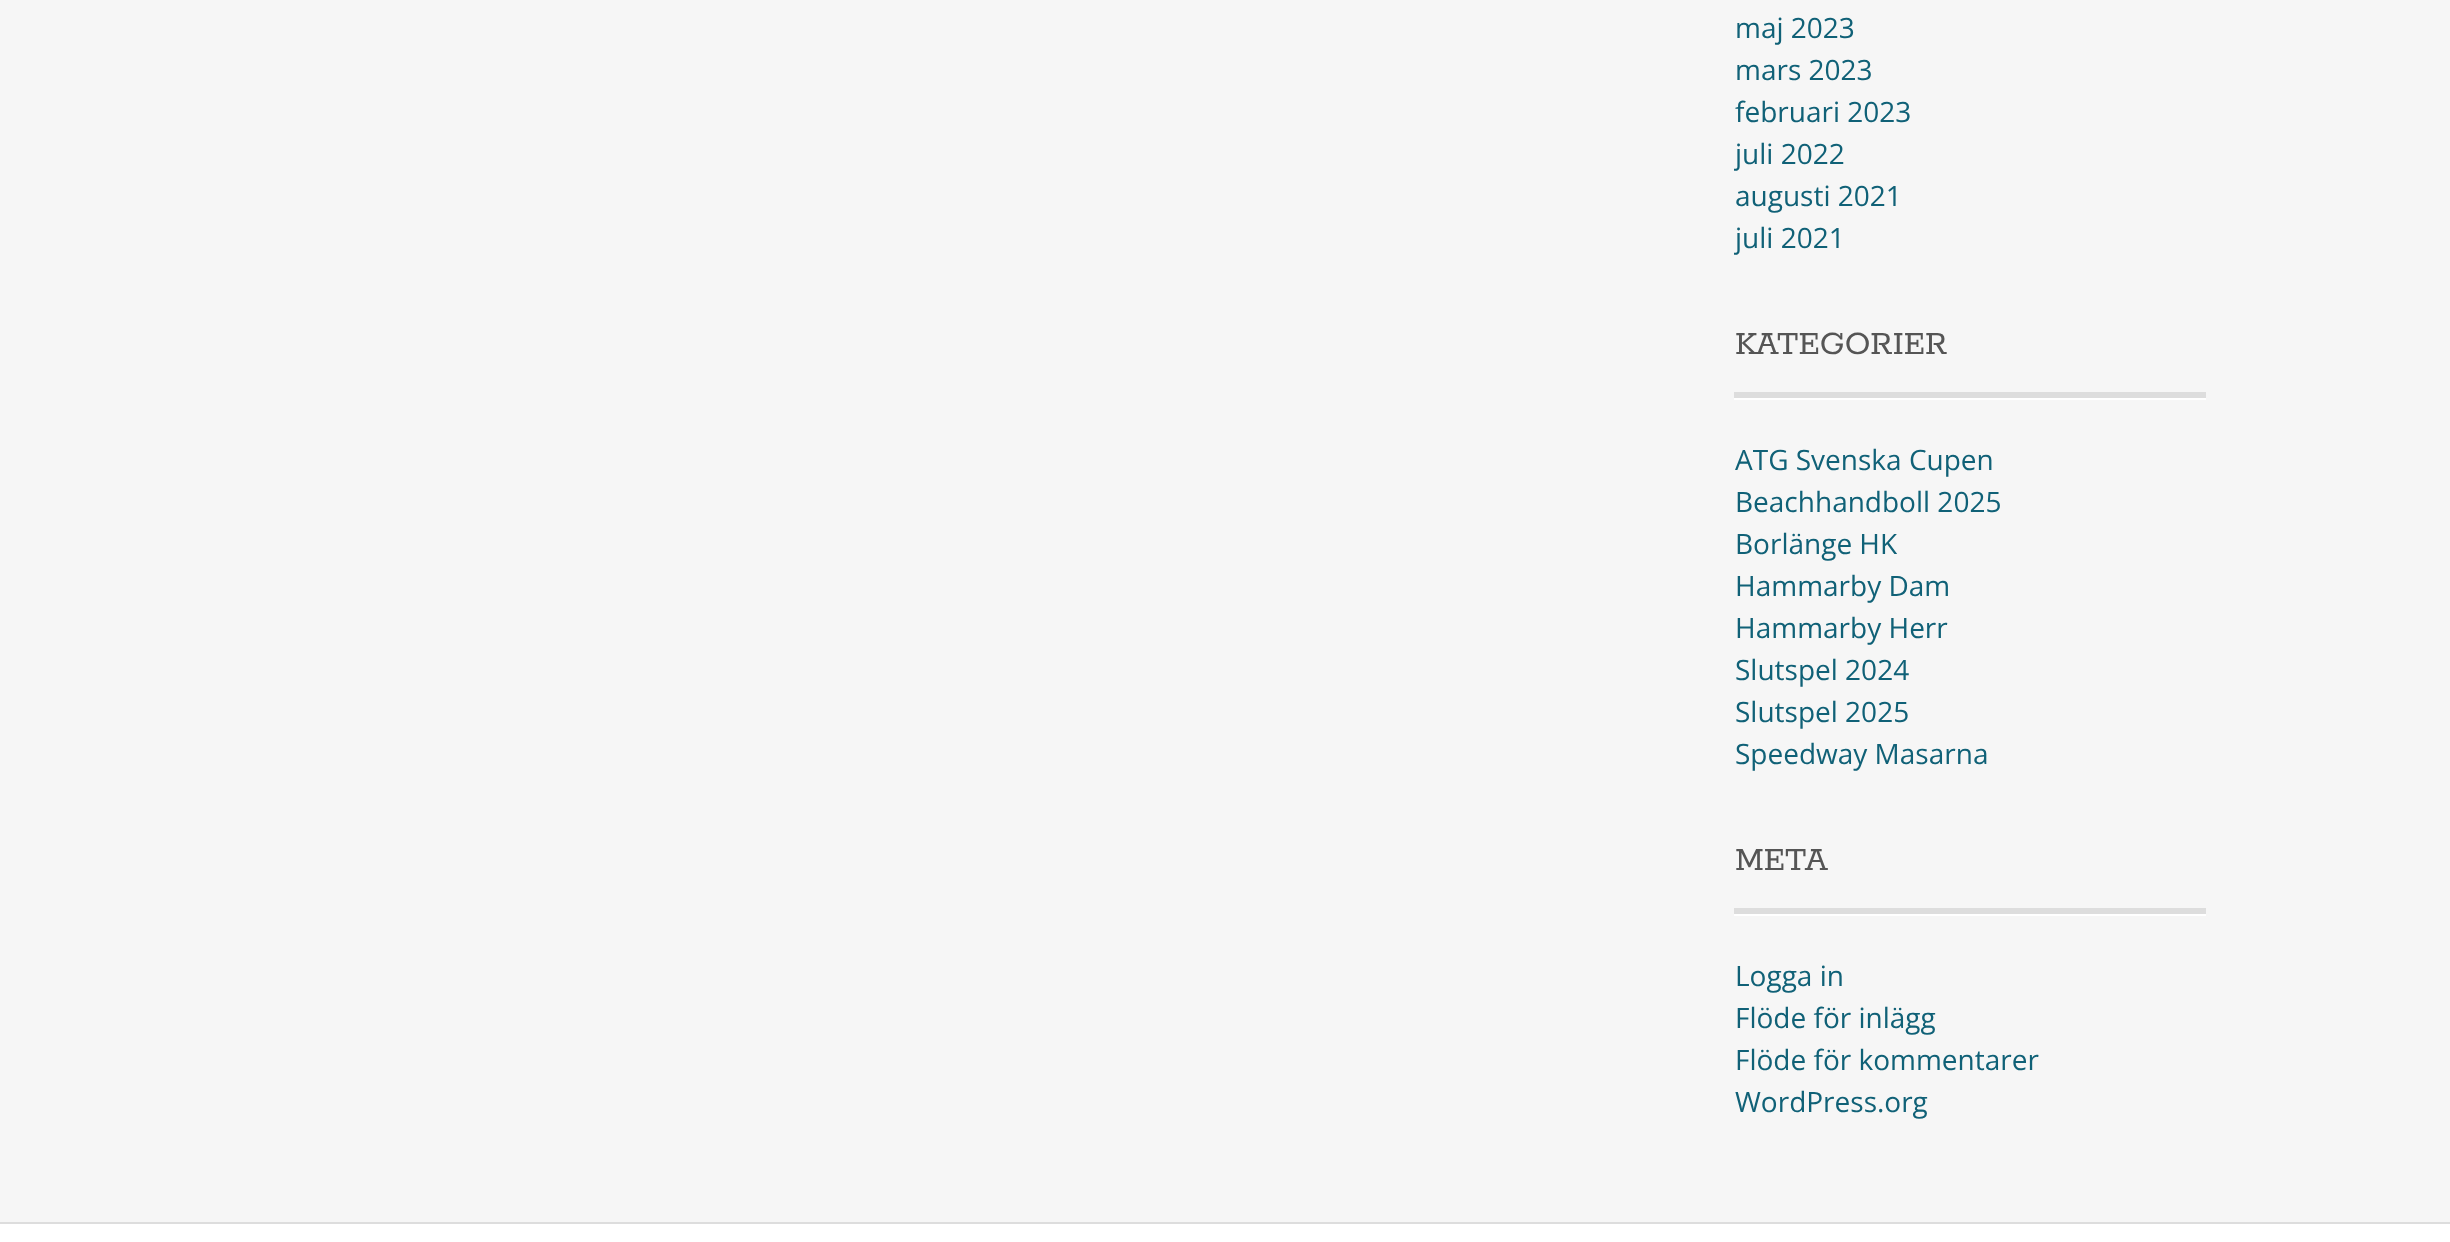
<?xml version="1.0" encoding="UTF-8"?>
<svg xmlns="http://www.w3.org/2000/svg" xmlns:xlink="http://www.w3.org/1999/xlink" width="2450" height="1242">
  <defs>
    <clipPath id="clip1"><rect x="1734" width="472" height="1182" /></clipPath>
  </defs>
  <rect width="100%" height="100%" fill="#f6f6f6" />
  <rect x="1734" y="398" width="472" height="2" fill="#ffffff" />
  <rect x="1734" y="392" width="472" height="6" fill="#dddddd" />
  <rect x="1734" y="914" width="472" height="2" fill="#ffffff" />
  <rect x="1734" y="908" width="472" height="6" fill="#dddddd" />
  <rect y="1224" width="2450" height="18" fill="#ffffff" />
  <rect y="1222" width="2450" height="2" fill="#dddddd" />
  <text x="1735" y="38" style="font-family: Open Sans; font-size: 28px; fill: #106177">maj 2023</text>
  <text x="1735" y="80" style="font-family: Open Sans; font-size: 28px; fill: #106177">mars 2023</text>
  <text x="1735" y="122" style="font-family: Open Sans; font-size: 28px; fill: #106177">februari 2023</text>
  <g clip-path="url(#clip1)">
    <text x="1735" y="164" style="font-family: Open Sans; font-size: 28px; fill: #106177">juli 2022</text>
  </g>
  <text x="1735" y="206" style="font-family: Open Sans; font-size: 28px; fill: #106177">augusti 2021</text>
  <g clip-path="url(#clip1)">
    <text x="1735" y="248" style="font-family: Open Sans; font-size: 28px; fill: #106177">juli 2021</text>
  </g>
  <text x="1735" y="354" style="font-family: Rokkitt; font-size: 36px; fill: #555555">KATEGORIER</text>
  <text x="1735" y="470" style="font-family: Open Sans; font-size: 28px; fill: #106177">ATG Svenska Cupen</text>
  <text x="1735" y="512" style="font-family: Open Sans; font-size: 28px; fill: #106177">Beachhandboll 2025</text>
  <text x="1735" y="554" style="font-family: Open Sans; font-size: 28px; fill: #106177">Borlänge HK</text>
  <text x="1735" y="596" style="font-family: Open Sans; font-size: 28px; fill: #106177">Hammarby Dam</text>
  <text x="1735" y="638" style="font-family: Open Sans; font-size: 28px; fill: #106177">Hammarby Herr</text>
  <text x="1735" y="680" style="font-family: Open Sans; font-size: 28px; fill: #106177">Slutspel 2024</text>
  <text x="1735" y="722" style="font-family: Open Sans; font-size: 28px; fill: #106177">Slutspel 2025</text>
  <text x="1735" y="764" style="font-family: Open Sans; font-size: 28px; fill: #106177">Speedway Masarna</text>
  <text x="1735" y="870" style="font-family: Rokkitt; font-size: 36px; fill: #555555">META</text>
  <text x="1735" y="986" style="font-family: Open Sans; font-size: 28px; fill: #106177">Logga in</text>
  <text x="1735" y="1028" style="font-family: Open Sans; font-size: 28px; fill: #106177">Flöde för inlägg</text>
  <text x="1735" y="1070" style="font-family: Open Sans; font-size: 28px; fill: #106177">Flöde för kommentarer</text>
  <text x="1735" y="1112" style="font-family: Open Sans; font-size: 28px; fill: #106177">WordPress.org</text>
</svg>
